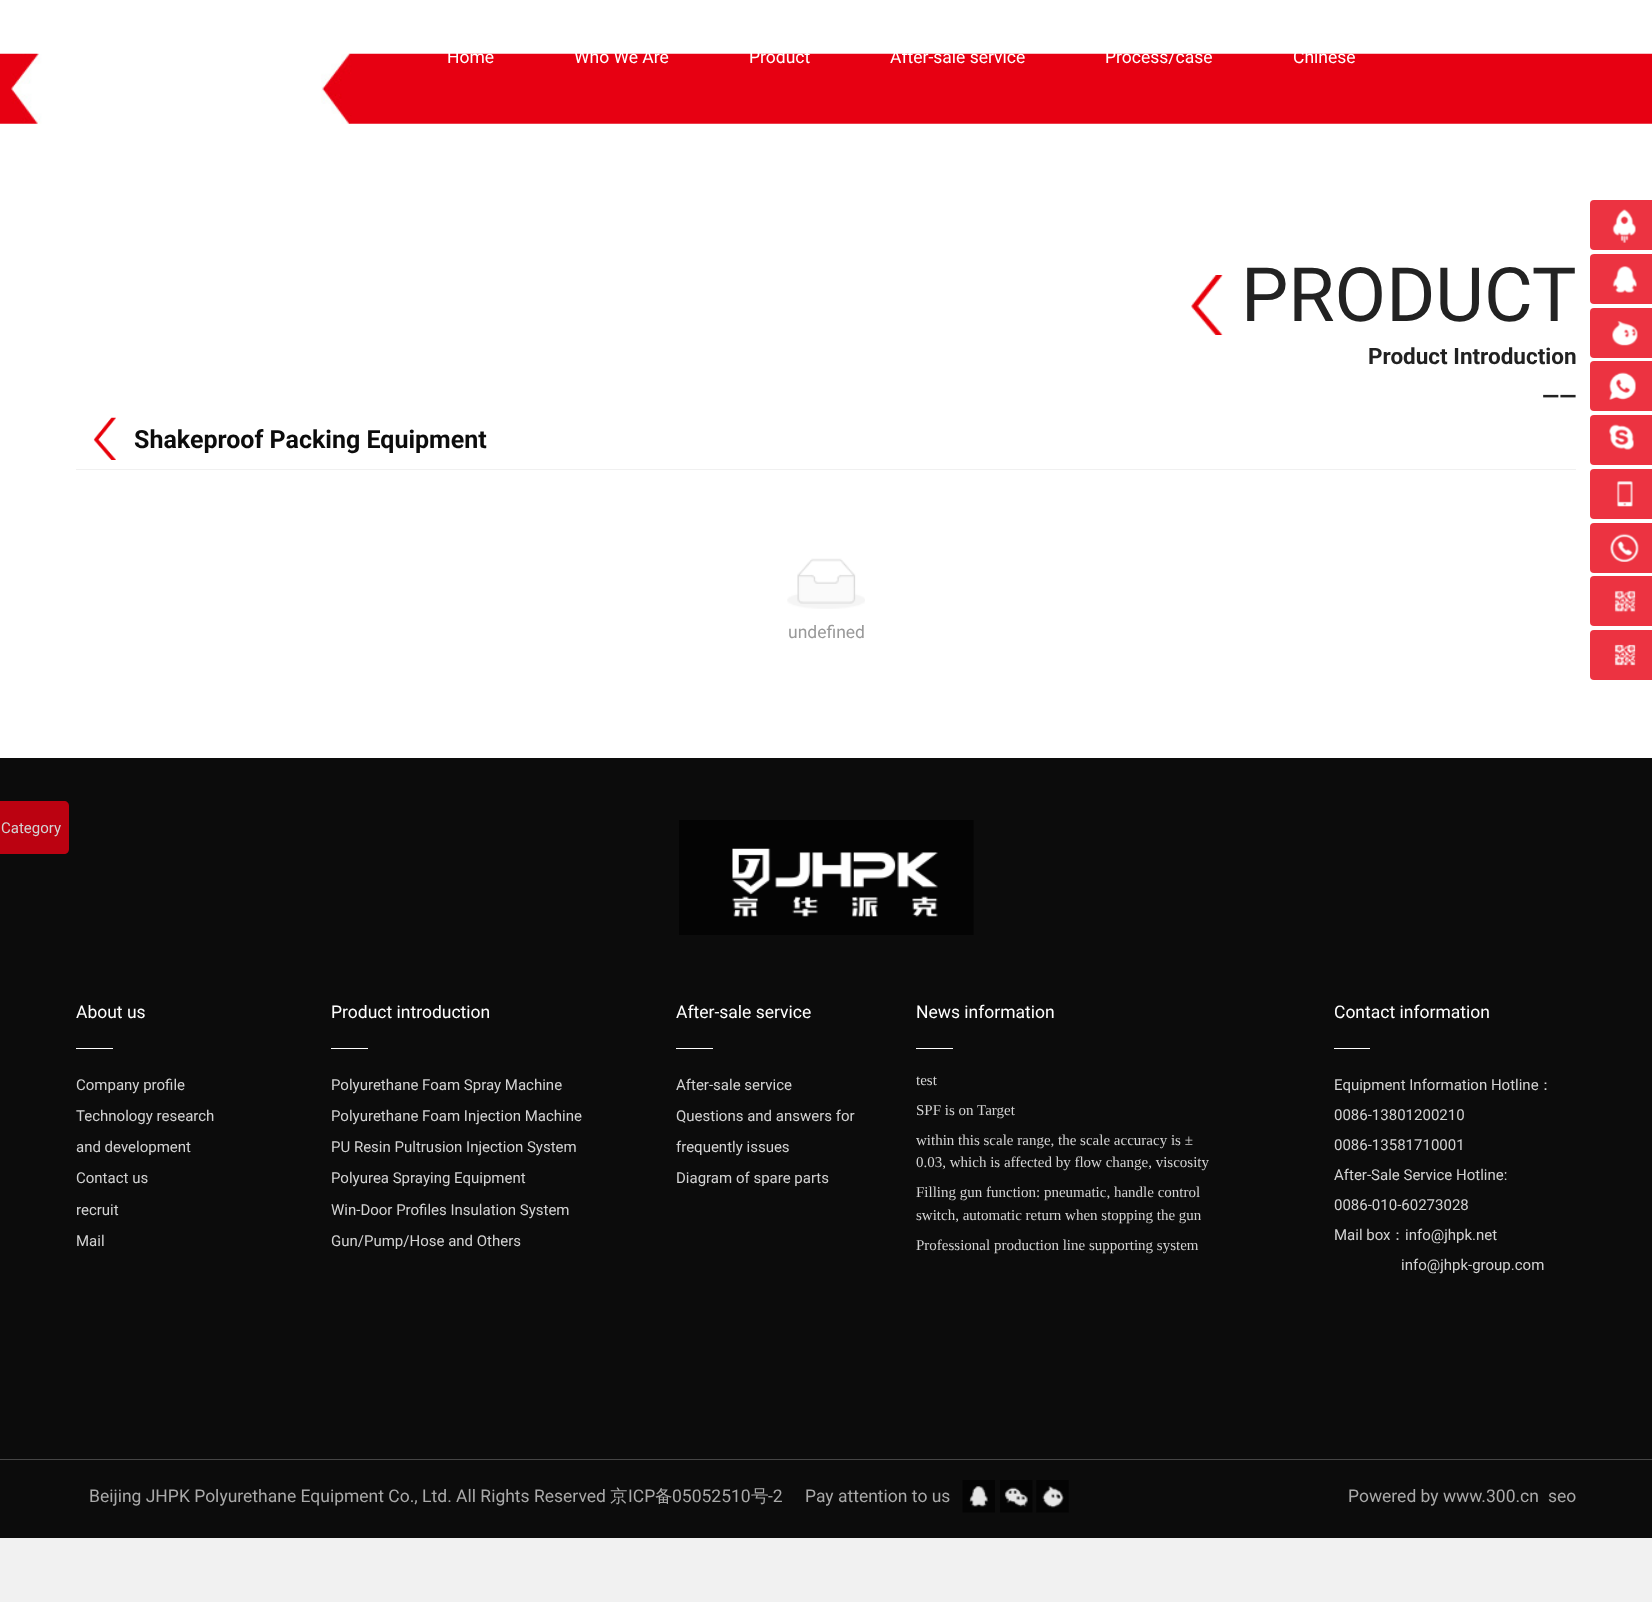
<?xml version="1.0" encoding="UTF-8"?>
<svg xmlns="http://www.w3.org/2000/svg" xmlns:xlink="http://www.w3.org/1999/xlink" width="1652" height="1602">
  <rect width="100%" height="100%" fill="#f1f1f1" />
  <rect width="1652" height="758" fill="#ffffff" />
  <image x="0" y="53" width="1652" height="71" xlink:href="image1.png" />
  <image x="1191" y="275" width="32" height="60" xlink:href="image2.png" />
  <image x="93" y="417" width="23" height="43" xlink:href="image3.png" />
  <rect x="76" y="469" width="1500" height="1" fill="#f0f0f0" />
  <image x="787" y="558" width="78" height="51" xlink:href="image4.png" />
  <rect y="758" width="1652" height="780" fill="#0c0c0c" />
  <path d="M -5 801 h 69 c 3 0 5 2 5 5 v 43 c 0 3 -2 5 -5 5 h -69 z" fill="#bb0211" />
  <rect x="1590" y="200" width="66" height="50" rx="4" fill="#ec3341" />
  <image x="1612" y="209" width="24" height="34" xlink:href="image5.png" />
  <rect x="1590" y="254" width="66" height="50" rx="4" fill="#ec3341" />
  <image x="1612" y="266" width="25" height="27" xlink:href="image6.png" />
  <rect x="1590" y="308" width="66" height="50" rx="4" fill="#ec3341" />
  <image x="1612" y="321" width="26" height="25" xlink:href="image7.png" />
  <rect x="1590" y="361" width="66" height="50" rx="4" fill="#ec3341" />
  <image x="1609" y="372" width="27" height="28" xlink:href="image8.png" />
  <rect x="1590" y="415" width="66" height="50" rx="4" fill="#ec3341" />
  <image x="1609" y="424" width="25" height="26" xlink:href="image9.png" />
  <rect x="1590" y="469" width="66" height="50" rx="4" fill="#ec3341" />
  <image x="1616" y="481" width="17" height="26" xlink:href="image10.png" />
  <rect x="1590" y="523" width="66" height="50" rx="4" fill="#ec3341" />
  <image x="1610" y="533" width="29" height="29" xlink:href="image11.png" />
  <rect x="1590" y="576" width="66" height="50" rx="4" fill="#ec3341" />
  <image x="1614" y="590" width="22" height="23" xlink:href="image12.png" />
  <rect x="1590" y="630" width="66" height="50" rx="4" fill="#ec3341" />
  <image x="1614" y="644" width="22" height="22" xlink:href="image13.png" />
  <image x="679" y="820" width="295" height="115" xlink:href="image14.png" />
  <rect x="76" y="1048" width="37" height="1" fill="#ffffff" />
  <rect x="331" y="1048" width="37" height="1" fill="#ffffff" />
  <rect x="676" y="1048" width="37" height="1" fill="#ffffff" />
  <rect x="916" y="1048" width="37" height="1" fill="#ffffff" />
  <rect x="1334" y="1048" width="36" height="1" fill="#ffffff" />
  <rect y="1459" width="1652" height="1" fill="#464646" />
  <image x="962" y="1480" width="33" height="33" xlink:href="image15.png" />
  <image x="1000" y="1480" width="33" height="33" xlink:href="image16.png" />
  <image x="1036" y="1480" width="33" height="33" xlink:href="image17.png" />
  <text x="447" y="63" style="font-family: Roboto; font-size: 17.5px; fill: #ffffff">Home</text>
  <text x="574" y="63" style="font-family: Roboto; font-size: 17.5px; fill: #ffffff">Who We Are</text>
  <text x="749" y="63" style="font-family: Roboto; font-size: 17.5px; fill: #ffffff">Product</text>
  <text x="890" y="63" style="font-family: Roboto; font-size: 17.5px; fill: #ffffff">After-sale service</text>
  <text x="1105" y="63" style="font-family: Roboto; font-size: 17.5px; fill: #ffffff">Process/case</text>
  <text x="1293" y="63" style="font-family: Roboto; font-size: 17.5px; fill: #ffffff">Chinese</text>
  <text x="1241" y="321" style="font-family: Roboto; font-size: 75px; fill: #222222">PRODUCT</text>
  <text x="1368" y="364" style="font-family: Roboto; font-size: 22.5px; font-weight: bold; fill: #222222">Product Introduction</text>
  <text x="1542" y="404" style="font-family: Roboto; font-size: 22.5px; font-weight: bold; fill: #222222">——</text>
  <text x="134" y="448" style="font-family: Roboto; font-size: 25px; font-weight: bold; fill: #0c0c0c">Shakeproof Packing Equipment</text>
  <text x="788" y="638" style="font-family: Roboto; font-size: 17.5px; fill: #999999">undefined</text>
  <text x="1" y="833" style="font-family: Roboto; font-size: 15px; fill: #d3d3d3">Category</text>
  <text x="76" y="1018" style="font-family: Roboto; font-size: 17.5px; fill: #ffffff">About us</text>
  <text x="76" y="1090" style="font-family: Roboto; font-size: 15px; fill: #d3d3d3">Company profile</text>
  <text x="76" y="1121" style="font-family: Roboto; font-size: 15px; fill: #d3d3d3">Technology research</text>
  <text x="76" y="1152" style="font-family: Roboto; font-size: 15px; fill: #d3d3d3">and development</text>
  <text x="76" y="1183" style="font-family: Roboto; font-size: 15px; fill: #d3d3d3">Contact us</text>
  <text x="76" y="1215" style="font-family: Roboto; font-size: 15px; fill: #d3d3d3">recruit</text>
  <text x="76" y="1246" style="font-family: Roboto; font-size: 15px; fill: #d3d3d3">Mail</text>
  <text x="331" y="1018" style="font-family: Roboto; font-size: 17.5px; fill: #ffffff">Product introduction</text>
  <text x="331" y="1090" style="font-family: Roboto; font-size: 15px; fill: #d3d3d3">Polyurethane Foam Spray Machine</text>
  <text x="331" y="1121" style="font-family: Roboto; font-size: 15px; fill: #d3d3d3">Polyurethane Foam Injection Machine</text>
  <text x="331" y="1152" style="font-family: Roboto; font-size: 15px; fill: #d3d3d3">PU Resin Pultrusion Injection System</text>
  <text x="331" y="1183" style="font-family: Roboto; font-size: 15px; fill: #d3d3d3">Polyurea Spraying Equipment</text>
  <text x="331" y="1215" style="font-family: Roboto; font-size: 15px; fill: #d3d3d3">Win-Door Profiles Insulation System</text>
  <text x="331" y="1246" style="font-family: Roboto; font-size: 15px; fill: #d3d3d3">Gun/Pump/Hose and Others</text>
  <text x="676" y="1018" style="font-family: Roboto; font-size: 17.5px; fill: #ffffff">After-sale service</text>
  <text x="676" y="1090" style="font-family: Roboto; font-size: 15px; fill: #d3d3d3">After-sale service</text>
  <text x="676" y="1121" style="font-family: Roboto; font-size: 15px; fill: #d3d3d3">Questions and answers for</text>
  <text x="676" y="1152" style="font-family: Roboto; font-size: 15px; fill: #d3d3d3">frequently issues</text>
  <text x="676" y="1183" style="font-family: Roboto; font-size: 15px; fill: #d3d3d3">Diagram of spare parts</text>
  <text x="916" y="1018" style="font-family: Roboto; font-size: 17.5px; fill: #ffffff">News information</text>
  <text x="916" y="1085" style="font-family: Liberation Serif; font-size: 15px; fill: #d3d3d3">test</text>
  <text x="916" y="1115" style="font-family: Liberation Serif; font-size: 15px; fill: #d3d3d3">SPF is on Target</text>
  <text x="916" y="1145" style="font-family: Liberation Serif; font-size: 15px; fill: #d3d3d3">within this scale range, the scale accuracy is ±</text>
  <text x="916" y="1167" style="font-family: Liberation Serif; font-size: 15px; fill: #d3d3d3">0.03, which is affected by flow change, viscosity</text>
  <text x="916" y="1197" style="font-family: Liberation Serif; font-size: 15px; fill: #d3d3d3">Filling gun function: pneumatic, handle control</text>
  <text x="916" y="1220" style="font-family: Liberation Serif; font-size: 15px; fill: #d3d3d3">switch, automatic return when stopping the gun</text>
  <text x="916" y="1250" style="font-family: Liberation Serif; font-size: 15px; fill: #d3d3d3">Professional production line supporting system</text>
  <text x="1334" y="1018" style="font-family: Roboto; font-size: 17.5px; fill: #ffffff">Contact information</text>
  <text x="1334" y="1090" style="font-family: Roboto; font-size: 15px; fill: #d3d3d3">Equipment Information Hotline</text>
  <text x="1538" y="1090" style="font-family: WenQuanYi Zen Hei; font-size: 15px; font-weight: 500; fill: #d3d3d3">：</text>
  <text x="1334" y="1120" style="font-family: Roboto; font-size: 15px; fill: #d3d3d3">0086-13801200210</text>
  <text x="1334" y="1150" style="font-family: Roboto; font-size: 15px; fill: #d3d3d3">0086-13581710001</text>
  <text x="1334" y="1180" style="font-family: Roboto; font-size: 15px; fill: #d3d3d3">After-Sale Service Hotline:</text>
  <text x="1334" y="1210" style="font-family: Roboto; font-size: 15px; fill: #d3d3d3">0086-010-60273028</text>
  <text x="1334" y="1240" style="font-family: Roboto; font-size: 15px; fill: #d3d3d3">Mail box</text>
  <text x="1390" y="1240" style="font-family: WenQuanYi Zen Hei; font-size: 15px; font-weight: 500; fill: #d3d3d3">：</text>
  <text x="1405" y="1240" style="font-family: Roboto; font-size: 15px; fill: #d3d3d3">info@jhpk.net</text>
  <text x="1401" y="1270" style="font-family: Roboto; font-size: 15px; fill: #d3d3d3">info@jhpk-group.com</text>
  <text x="89" y="1502" style="font-family: Roboto; font-size: 17.5px; fill: #a9a9a9">Beijing JHPK Polyurethane Equipment Co., Ltd. All Rights Reserved</text>
  <text x="610" y="1502" style="font-family: WenQuanYi Zen Hei; font-size: 17.5px; font-weight: 500; fill: #a9a9a9">京</text>
  <text x="628" y="1502" style="font-family: Roboto; font-size: 17.5px; fill: #a9a9a9">ICP</text>
  <text x="655" y="1502" style="font-family: WenQuanYi Zen Hei; font-size: 17.5px; font-weight: 500; fill: #a9a9a9">备</text>
  <text x="672" y="1502" style="font-family: Roboto; font-size: 17.5px; fill: #a9a9a9">05052510</text>
  <text x="751" y="1502" style="font-family: WenQuanYi Zen Hei; font-size: 17.5px; font-weight: 500; fill: #a9a9a9">号</text>
  <text x="768" y="1502" style="font-family: Roboto; font-size: 17.5px; fill: #a9a9a9">-2</text>
  <text x="805" y="1502" style="font-family: Roboto; font-size: 17.5px; fill: #a9a9a9">Pay attention to us</text>
  <text x="1348" y="1502" style="font-family: Roboto; font-size: 17.5px; fill: #a9a9a9">Powered by www.300.cn</text>
  <text x="1548" y="1502" style="font-family: Roboto; font-size: 17.5px; fill: #a9a9a9">seo</text>
</svg>
